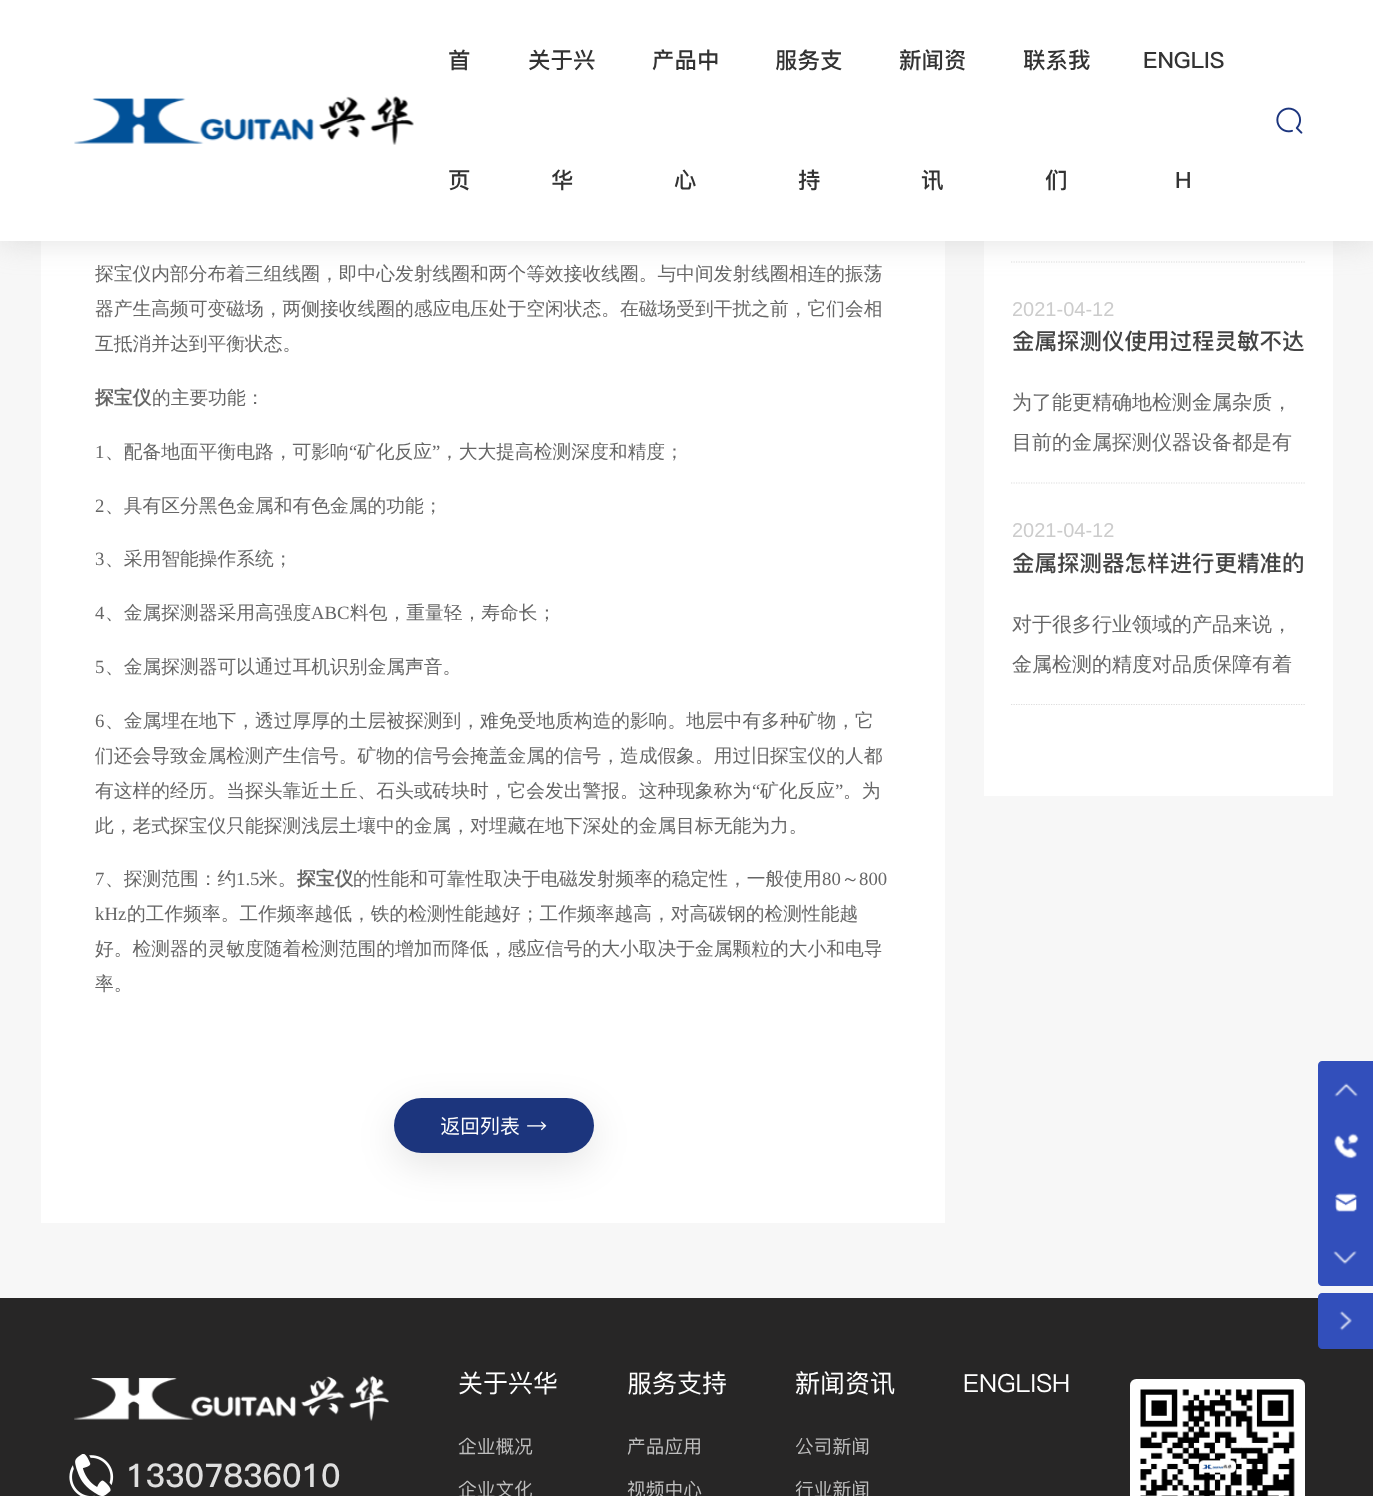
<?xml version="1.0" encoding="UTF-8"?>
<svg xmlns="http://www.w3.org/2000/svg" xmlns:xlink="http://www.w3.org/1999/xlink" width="1373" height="1496">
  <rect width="100%" height="100%" fill="#f7f7f7" />
  <rect x="41" y="241" width="904" height="982" fill="#ffffff" />
  <rect x="984" y="241" width="349" height="555" fill="#ffffff" />
  <path d="M 1011 262 h 294" fill="none" stroke="#dddddd" stroke-width="1.2" stroke-dasharray="1.25 1.25" />
  <rect width="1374" height="241" fill="#b1b1b1" fill-opacity="0.4" filter="blur(15.5px)" />
  <rect width="1373" height="241" fill="#ffffff" />
  <image x="74" y="96" width="340" height="49" xlink:href="image1.png" />
  <image x="1276" y="107" width="27" height="27" xlink:href="image2.png" />
  <rect x="394" y="1110" width="200" height="55" rx="27.5" fill="#000000" fill-opacity="0.1" filter="blur(19px)" />
  <rect x="394" y="1098" width="200" height="55" rx="27.5" fill="#1c357d" />
  <path d="M 1011 483 h 294" fill="none" stroke="#dddddd" stroke-width="1.2" stroke-dasharray="1.25 1.25" />
  <path d="M 1011 704.5 h 294" fill="none" stroke="#dddddd" stroke-width="1.2" stroke-dasharray="1.25 1.25" />
  <path d="M 1322 1061 h 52 v 225 h -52 c -2 0 -4 -2 -4 -4 v -217 c 0 -2 2 -4 4 -4 z" fill="#324fbb" />
  <image x="1334" y="1083" width="24" height="14" xlink:href="image3.png" />
  <image x="1334" y="1133" width="25" height="26" xlink:href="image4.png" />
  <image x="1335" y="1193" width="23" height="19" xlink:href="image5.png" />
  <image x="1333" y="1251" width="24" height="14" xlink:href="image6.png" />
  <rect y="1298" width="1373" height="198" fill="#272626" />
  <path d="M 1322 1293 h 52 v 56 h -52 c -2 0 -4 -2 -4 -4 v -48 c 0 -2 2 -4 4 -4 z" fill="#324fbb" />
  <image x="1339" y="1311" width="13" height="20" xlink:href="image7.png" />
  <image x="74" y="1375" width="315" height="46" xlink:href="image8.png" />
  <image x="69" y="1454" width="45" height="42" xlink:href="image9.png" />
  <image x="1130" y="1379" width="175" height="117" xlink:href="image10.png" />
  <text x="448" y="68" style="font-family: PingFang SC; font-size: 22.5px; font-weight: bold; fill: #333333">首</text>
  <text x="448" y="188" style="font-family: PingFang SC; font-size: 22.5px; font-weight: bold; fill: #333333">页</text>
  <text x="528" y="68" style="font-family: PingFang SC; font-size: 22.5px; font-weight: bold; fill: #333333">关于兴</text>
  <text x="551" y="188" style="font-family: PingFang SC; font-size: 22.5px; font-weight: bold; fill: #333333">华</text>
  <text x="652" y="68" style="font-family: PingFang SC; font-size: 22.5px; font-weight: bold; fill: #333333">产品中</text>
  <text x="674" y="188" style="font-family: PingFang SC; font-size: 22.5px; font-weight: bold; fill: #333333">心</text>
  <text x="775" y="68" style="font-family: PingFang SC; font-size: 22.5px; font-weight: bold; fill: #333333">服务支</text>
  <text x="798" y="188" style="font-family: PingFang SC; font-size: 22.5px; font-weight: bold; fill: #333333">持</text>
  <text x="899" y="68" style="font-family: PingFang SC; font-size: 22.5px; font-weight: bold; fill: #333333">新闻资</text>
  <text x="921" y="188" style="font-family: PingFang SC; font-size: 22.5px; font-weight: bold; fill: #333333">讯</text>
  <text x="1023" y="68" style="font-family: PingFang SC; font-size: 22.5px; font-weight: bold; fill: #333333">联系我</text>
  <text x="1045" y="188" style="font-family: PingFang SC; font-size: 22.5px; font-weight: bold; fill: #333333">们</text>
  <text x="1143" y="68" style="font-family: PingFang SC; font-size: 22.5px; font-weight: bold; fill: #333333">ENGLIS</text>
  <text x="1175" y="188" style="font-family: PingFang SC; font-size: 22.5px; font-weight: bold; fill: #333333">H</text>
  <text x="95" y="280" style="font-family: WenQuanYi Zen Hei; font-size: 18.75px; font-weight: 500; fill: #666666">探宝仪内部分布着三组线圈，即中心发射线圈和两个等效接收线圈。与中间发射线圈相连的振荡</text>
  <text x="95" y="315" style="font-family: WenQuanYi Zen Hei; font-size: 18.75px; font-weight: 500; fill: #666666">器产生高频可变磁场，两侧接收线圈的感应电压处于空闲状态。在磁场受到干扰之前，它们会相</text>
  <text x="95" y="350" style="font-family: WenQuanYi Zen Hei; font-size: 18.75px; font-weight: 500; fill: #666666">互抵消并达到平衡状态。</text>
  <text x="95" y="404" style="font-family: WenQuanYi Zen Hei; font-size: 18.75px; font-weight: bold; fill: #666666">探宝仪</text>
  <text x="152" y="404" style="font-family: WenQuanYi Zen Hei; font-size: 18.75px; font-weight: 500; fill: #666666">的主要功能：</text>
  <text x="95" y="458" style="font-family: Liberation Serif; font-size: 18.75px; fill: #666666">1</text>
  <text x="105" y="458" style="font-family: WenQuanYi Zen Hei; font-size: 18.75px; font-weight: 500; fill: #666666">、配备地面平衡电路，可影响</text>
  <text x="349" y="458" style="font-family: Liberation Serif; font-size: 18.75px; fill: #666666">“</text>
  <text x="357" y="458" style="font-family: WenQuanYi Zen Hei; font-size: 18.75px; font-weight: 500; fill: #666666">矿化反应</text>
  <text x="432" y="458" style="font-family: Liberation Serif; font-size: 18.75px; fill: #666666">”</text>
  <text x="440" y="458" style="font-family: WenQuanYi Zen Hei; font-size: 18.75px; font-weight: 500; fill: #666666">，大大提高检测深度和精度；</text>
  <text x="95" y="512" style="font-family: Liberation Serif; font-size: 18.75px; fill: #666666">2</text>
  <text x="105" y="512" style="font-family: WenQuanYi Zen Hei; font-size: 18.75px; font-weight: 500; fill: #666666">、具有区分黑色金属和有色金属的功能；</text>
  <text x="95" y="565" style="font-family: Liberation Serif; font-size: 18.75px; fill: #666666">3</text>
  <text x="105" y="565" style="font-family: WenQuanYi Zen Hei; font-size: 18.75px; font-weight: 500; fill: #666666">、采用智能操作系统；</text>
  <text x="95" y="619" style="font-family: Liberation Serif; font-size: 18.75px; fill: #666666">4</text>
  <text x="105" y="619" style="font-family: WenQuanYi Zen Hei; font-size: 18.75px; font-weight: 500; fill: #666666">、金属探测器采用高强度</text>
  <text x="311" y="619" style="font-family: Liberation Serif; font-size: 18.75px; fill: #666666">ABC</text>
  <text x="350" y="619" style="font-family: WenQuanYi Zen Hei; font-size: 18.75px; font-weight: 500; fill: #666666">料包，重量轻，寿命长；</text>
  <text x="95" y="673" style="font-family: Liberation Serif; font-size: 18.75px; fill: #666666">5</text>
  <text x="105" y="673" style="font-family: WenQuanYi Zen Hei; font-size: 18.75px; font-weight: 500; fill: #666666">、金属探测器可以通过耳机识别金属声音。</text>
  <text x="95" y="727" style="font-family: Liberation Serif; font-size: 18.75px; fill: #666666">6</text>
  <text x="105" y="727" style="font-family: WenQuanYi Zen Hei; font-size: 18.75px; font-weight: 500; fill: #666666">、金属埋在地下，透过厚厚的土层被探测到，难免受地质构造的影响。地层中有多种矿物，它</text>
  <text x="95" y="762" style="font-family: WenQuanYi Zen Hei; font-size: 18.75px; font-weight: 500; fill: #666666">们还会导致金属检测产生信号。矿物的信号会掩盖金属的信号，造成假象。用过旧探宝仪的人都</text>
  <text x="95" y="797" style="font-family: WenQuanYi Zen Hei; font-size: 18.75px; font-weight: 500; fill: #666666">有这样的经历。当探头靠近土丘、石头或砖块时，它会发出警报。这种现象称为</text>
  <text x="752" y="797" style="font-family: Liberation Serif; font-size: 18.75px; fill: #666666">“</text>
  <text x="760" y="797" style="font-family: WenQuanYi Zen Hei; font-size: 18.75px; font-weight: 500; fill: #666666">矿化反应</text>
  <text x="835" y="797" style="font-family: Liberation Serif; font-size: 18.75px; fill: #666666">”</text>
  <text x="843" y="797" style="font-family: WenQuanYi Zen Hei; font-size: 18.75px; font-weight: 500; fill: #666666">。为</text>
  <text x="95" y="832" style="font-family: WenQuanYi Zen Hei; font-size: 18.75px; font-weight: 500; fill: #666666">此，老式探宝仪只能探测浅层土壤中的金属，对埋藏在地下深处的金属目标无能为力。</text>
  <text x="95" y="885" style="font-family: Liberation Serif; font-size: 18.75px; fill: #666666">7</text>
  <text x="105" y="885" style="font-family: WenQuanYi Zen Hei; font-size: 18.75px; font-weight: 500; fill: #666666">、探测范围：约</text>
  <text x="236" y="885" style="font-family: Liberation Serif; font-size: 18.75px; fill: #666666">1.5</text>
  <text x="259" y="885" style="font-family: WenQuanYi Zen Hei; font-size: 18.75px; font-weight: 500; fill: #666666">米。</text>
  <text x="297" y="885" style="font-family: WenQuanYi Zen Hei; font-size: 18.75px; font-weight: bold; fill: #666666">探宝仪</text>
  <text x="353" y="885" style="font-family: WenQuanYi Zen Hei; font-size: 18.75px; font-weight: 500; fill: #666666">的性能和可靠性取决于电磁发射频率的稳定性，一般使用</text>
  <text x="822" y="885" style="font-family: Liberation Serif; font-size: 18.75px; fill: #666666">80</text>
  <text x="841" y="885" style="font-family: WenQuanYi Zen Hei; font-size: 18.75px; font-weight: 500; fill: #666666">～</text>
  <text x="859" y="885" style="font-family: Liberation Serif; font-size: 18.75px; fill: #666666">800</text>
  <text x="95" y="920" style="font-family: Liberation Serif; font-size: 18.75px; fill: #666666">kHz</text>
  <text x="127" y="920" style="font-family: WenQuanYi Zen Hei; font-size: 18.75px; font-weight: 500; fill: #666666">的工作频率。工作频率越低，铁的检测性能越好；工作频率越高，对高碳钢的检测性能越</text>
  <text x="95" y="955" style="font-family: WenQuanYi Zen Hei; font-size: 18.75px; font-weight: 500; fill: #666666">好。检测器的灵敏度随着检测范围的增加而降低，感应信号的大小取决于金属颗粒的大小和电导</text>
  <text x="95" y="990" style="font-family: WenQuanYi Zen Hei; font-size: 18.75px; font-weight: 500; fill: #666666">率。</text>
  <text x="440" y="1133" style="font-family: PingFang SC; font-size: 20px; font-weight: 500; fill: #ffffff">返回列表 →</text>
  <text x="1012" y="316" style="font-family: Liberation Sans; font-size: 20px; fill: #cccccc">2021-04-12</text>
  <text x="1012" y="349" style="font-family: PingFang SC; font-size: 22.5px; font-weight: bold; fill: #444444">金属探测仪使用过程灵敏不达</text>
  <text x="1012" y="409" style="font-family: WenQuanYi Zen Hei; font-size: 20px; font-weight: 500; fill: #666666">为了能更精确地检测金属杂质，</text>
  <text x="1012" y="449" style="font-family: WenQuanYi Zen Hei; font-size: 20px; font-weight: 500; fill: #666666">目前的金属探测仪器设备都是有</text>
  <text x="1012" y="537" style="font-family: Liberation Sans; font-size: 20px; fill: #cccccc">2021-04-12</text>
  <text x="1012" y="571" style="font-family: PingFang SC; font-size: 22.5px; font-weight: bold; fill: #444444">金属探测器怎样进行更精准的</text>
  <text x="1012" y="631" style="font-family: WenQuanYi Zen Hei; font-size: 20px; font-weight: 500; fill: #666666">对于很多行业领域的产品来说，</text>
  <text x="1012" y="671" style="font-family: WenQuanYi Zen Hei; font-size: 20px; font-weight: 500; fill: #666666">金属检测的精度对品质保障有着</text>
  <text x="126" y="1487" style="font-family: PingFang SC; font-size: 32.5px; font-weight: bold; fill: #dfdfdf">13307836010</text>
  <text x="458" y="1392" style="font-family: PingFang SC; font-size: 25px; font-weight: 500; fill: #ffffff">关于兴华</text>
  <text x="458" y="1453" style="font-family: PingFang SC; font-size: 18.75px; font-weight: 500; fill: #bebebe">企业概况</text>
  <text x="458" y="1496" style="font-family: PingFang SC; font-size: 18.75px; font-weight: 500; fill: #bebebe">企业文化</text>
  <text x="627" y="1392" style="font-family: PingFang SC; font-size: 25px; font-weight: 500; fill: #ffffff">服务支持</text>
  <text x="627" y="1453" style="font-family: PingFang SC; font-size: 18.75px; font-weight: 500; fill: #bebebe">产品应用</text>
  <text x="627" y="1496" style="font-family: PingFang SC; font-size: 18.75px; font-weight: 500; fill: #bebebe">视频中心</text>
  <text x="795" y="1392" style="font-family: PingFang SC; font-size: 25px; font-weight: 500; fill: #ffffff">新闻资讯</text>
  <text x="795" y="1453" style="font-family: PingFang SC; font-size: 18.75px; font-weight: 500; fill: #bebebe">公司新闻</text>
  <text x="795" y="1496" style="font-family: PingFang SC; font-size: 18.75px; font-weight: 500; fill: #bebebe">行业新闻</text>
  <text x="963" y="1392" style="font-family: PingFang SC; font-size: 25px; font-weight: 500; fill: #ffffff">ENGLISH</text>
</svg>
